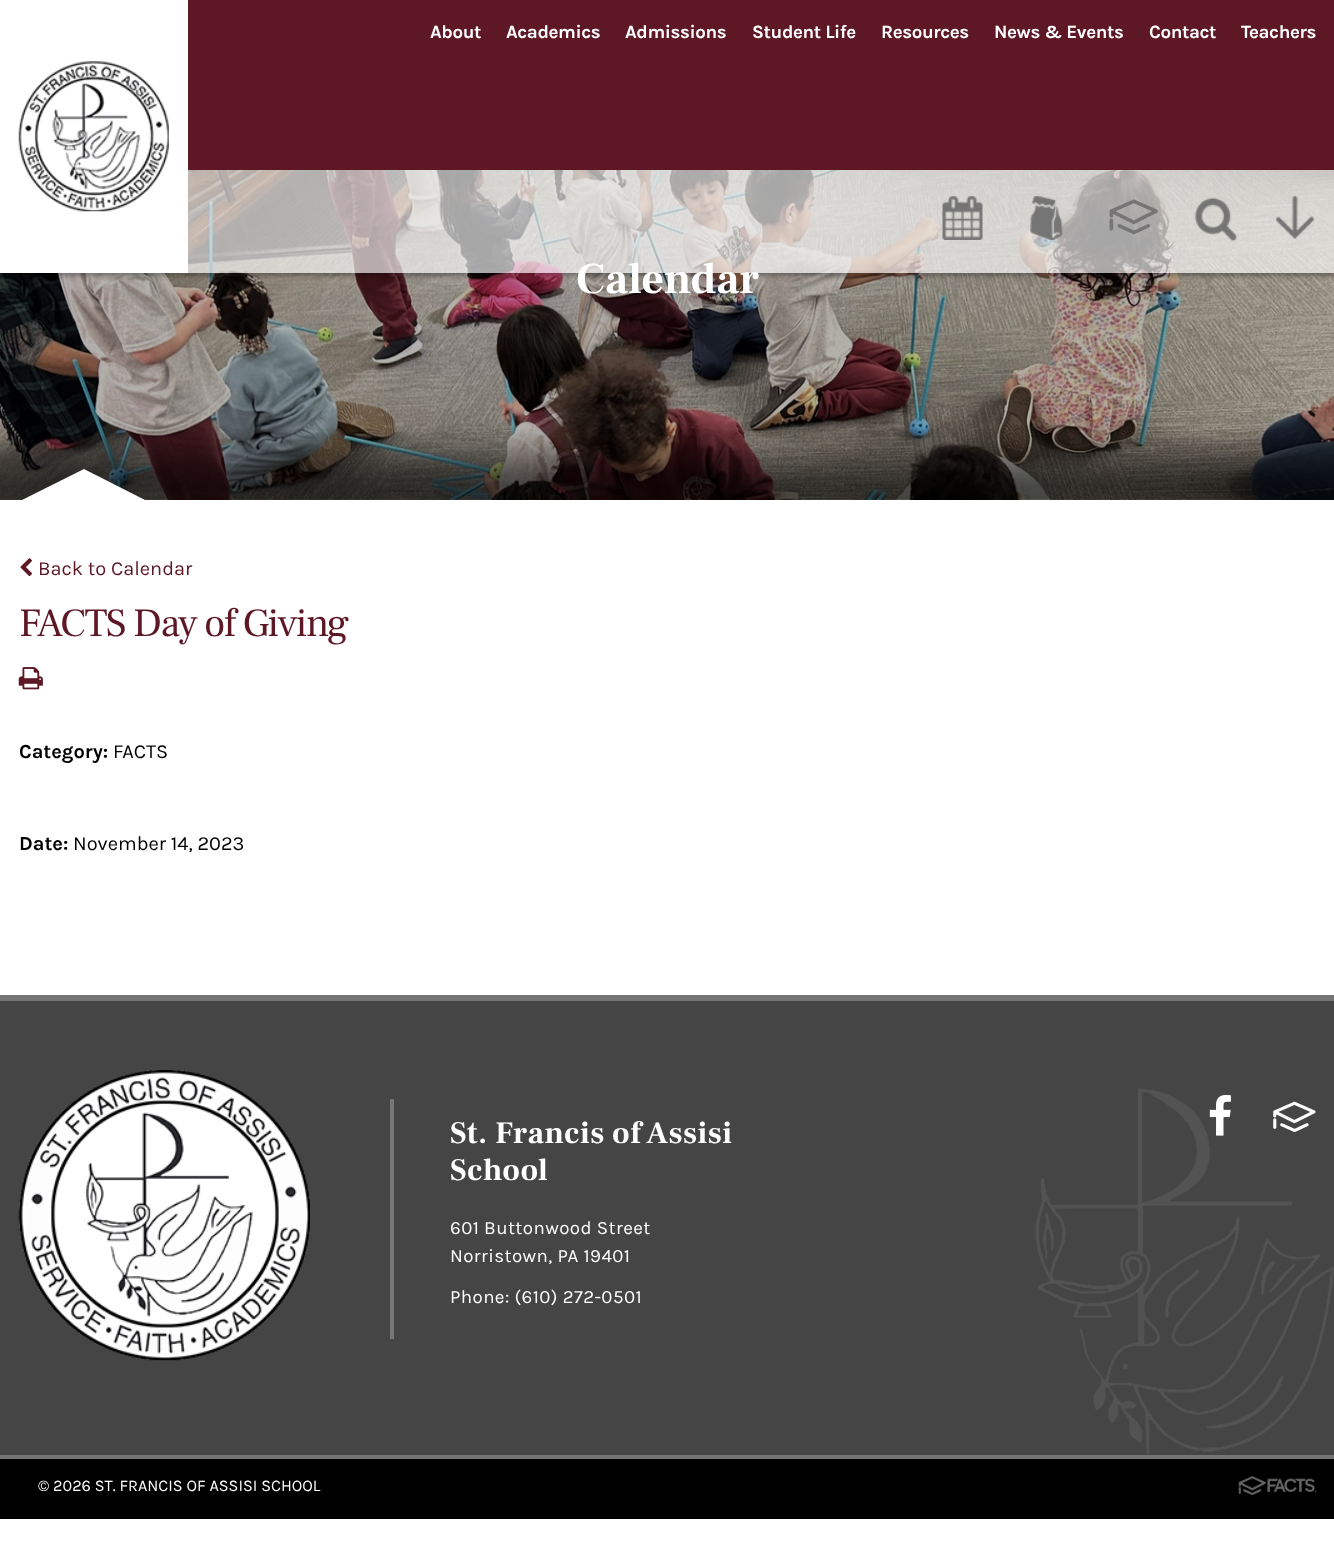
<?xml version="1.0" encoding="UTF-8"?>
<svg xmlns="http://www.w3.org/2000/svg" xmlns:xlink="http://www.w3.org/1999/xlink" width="1334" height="1557">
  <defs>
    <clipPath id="clip1"><path d="M 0 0 h 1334 v 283 h -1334 z m 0 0 h 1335 v 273 h -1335 z" clip-rule="evenodd" /></clipPath>
  </defs>
  <rect width="100%" height="100%" fill="#ffffff" />
  <image x="0" y="170" width="1334" height="330" xlink:href="image7.png" />
  <g clip-path="url(#clip1)">
    <rect y="4" width="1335" height="272" fill="#000000" fill-opacity="0.3" filter="blur(2px)" />
  </g>
  <rect x="188" width="1146" height="170" fill="#5d1725" />
  <rect y="170" width="188" height="103" fill="#ffffff" />
  <image x="18" y="61" width="151" height="151" xlink:href="image1.png" />
  <image x="0" y="429" width="1334" height="71" xlink:href="image8.png" />
  <path d="M 145 500 h -123 l 62 -31 z" fill="#ffffff" />
  <image x="20" y="558" width="12" height="19" xlink:href="image9.png" />
  <image x="18" y="667" width="25" height="23" xlink:href="image10.png" />
  <rect y="1001" width="1334" height="454" fill="#454545" />
  <rect y="995" width="1334" height="6" fill="#757575" />
  <image x="1035" y="1088" width="299" height="367" xlink:href="image11.png" />
  <rect y="1455" width="1334" height="4" fill="#757575" />
  <image x="18" y="1070" width="292" height="291" xlink:href="image12.png" />
  <image x="1209" y="1095" width="22" height="41" xlink:href="image13.png" />
  <image x="1273" y="1101" width="43" height="31" xlink:href="image14.png" />
  <rect x="390" y="1099" width="4" height="240" fill="#757575" />
  <rect y="1459" width="1334" height="60" fill="#000000" />
  <image x="1238" y="1476" width="79" height="19" xlink:href="image15.png" />
  <text x="430" y="38" style="font-family: Karla; font-size: 18.75px; font-weight: bold; letter-spacing: -0.4px; fill: #ffffff">About</text>
  <text x="506" y="38" style="font-family: Karla; font-size: 18.75px; font-weight: bold; letter-spacing: -0.4px; fill: #ffffff">Academics</text>
  <text x="625" y="38" style="font-family: Karla; font-size: 18.75px; font-weight: bold; letter-spacing: -0.4px; fill: #ffffff">Admissions</text>
  <text x="752" y="38" style="font-family: Karla; font-size: 18.75px; font-weight: bold; letter-spacing: -0.4px; fill: #ffffff">Student Life</text>
  <text x="881" y="38" style="font-family: Karla; font-size: 18.75px; font-weight: bold; letter-spacing: -0.4px; fill: #ffffff">Resources</text>
  <text x="994" y="38" style="font-family: Karla; font-size: 18.75px; font-weight: bold; letter-spacing: -0.4px; fill: #ffffff">News &amp; Events</text>
  <text x="1149" y="38" style="font-family: Karla; font-size: 18.75px; font-weight: bold; letter-spacing: -0.4px; fill: #ffffff">Contact</text>
  <text x="1241" y="38" style="font-family: Karla; font-size: 18.75px; font-weight: bold; letter-spacing: -0.4px; fill: #ffffff">Teachers</text>
  <text x="576" y="293" style="font-family: Frank Ruhl Libre; font-size: 43.75px; font-weight: bold; fill: #ffffff">Calendar</text>
  <rect x="188" y="170" width="1146" height="103" fill="#ffffff" fill-opacity="0.65" />
  <image x="1276" y="196" width="38" height="43" xlink:href="image6.png" />
  <image x="1195" y="197" width="42" height="45" xlink:href="image5.png" />
  <image x="1109" y="199" width="49" height="36" xlink:href="image4.png" />
  <image x="1030" y="196" width="33" height="44" xlink:href="image3.png" />
  <image x="942" y="196" width="41" height="44" xlink:href="image2.png" />
  <text x="38" y="575" style="font-family: Karla; font-size: 20px; fill: #5d1725">Back to Calendar</text>
  <text x="19" y="636" style="font-family: Frank Ruhl Libre; font-size: 40px; letter-spacing: -1.6px; fill: #5d1725">FACTS Day of Giving</text>
  <text x="19" y="758" style="font-family: Karla; font-size: 20px; font-weight: bold; fill: #000000">Category:</text>
  <text x="113" y="758" style="font-family: Karla; font-size: 20px; fill: #000000">FACTS</text>
  <text x="19" y="850" style="font-family: Karla; font-size: 20px; font-weight: bold; fill: #000000">Date:</text>
  <text x="73" y="850" style="font-family: Karla; font-size: 20px; fill: #000000">November 14, 2023</text>
  <text x="450" y="1143" style="font-family: Frank Ruhl Libre; font-size: 31.25px; font-weight: bold; letter-spacing: 0.5px; fill: #ffffff">St. Francis of Assisi</text>
  <text x="450" y="1180" style="font-family: Frank Ruhl Libre; font-size: 31.25px; font-weight: bold; letter-spacing: 0.5px; fill: #ffffff">School</text>
  <text x="450" y="1234" style="font-family: Karla; font-size: 18.75px; letter-spacing: 0.4px; fill: #ffffff">601 Buttonwood Street</text>
  <text x="450" y="1262" style="font-family: Karla; font-size: 18.75px; letter-spacing: 0.4px; fill: #ffffff">Norristown, PA 19401</text>
  <text x="450" y="1303" style="font-family: Karla; font-size: 18.75px; letter-spacing: 0.4px; fill: #ffffff">Phone: (610) 272-0501</text>
  <text x="38" y="1491" style="font-family: Karla; font-size: 16.25px; fill: #ffffff">© 2026 ST. FRANCIS OF ASSISI SCHOOL</text>
</svg>
